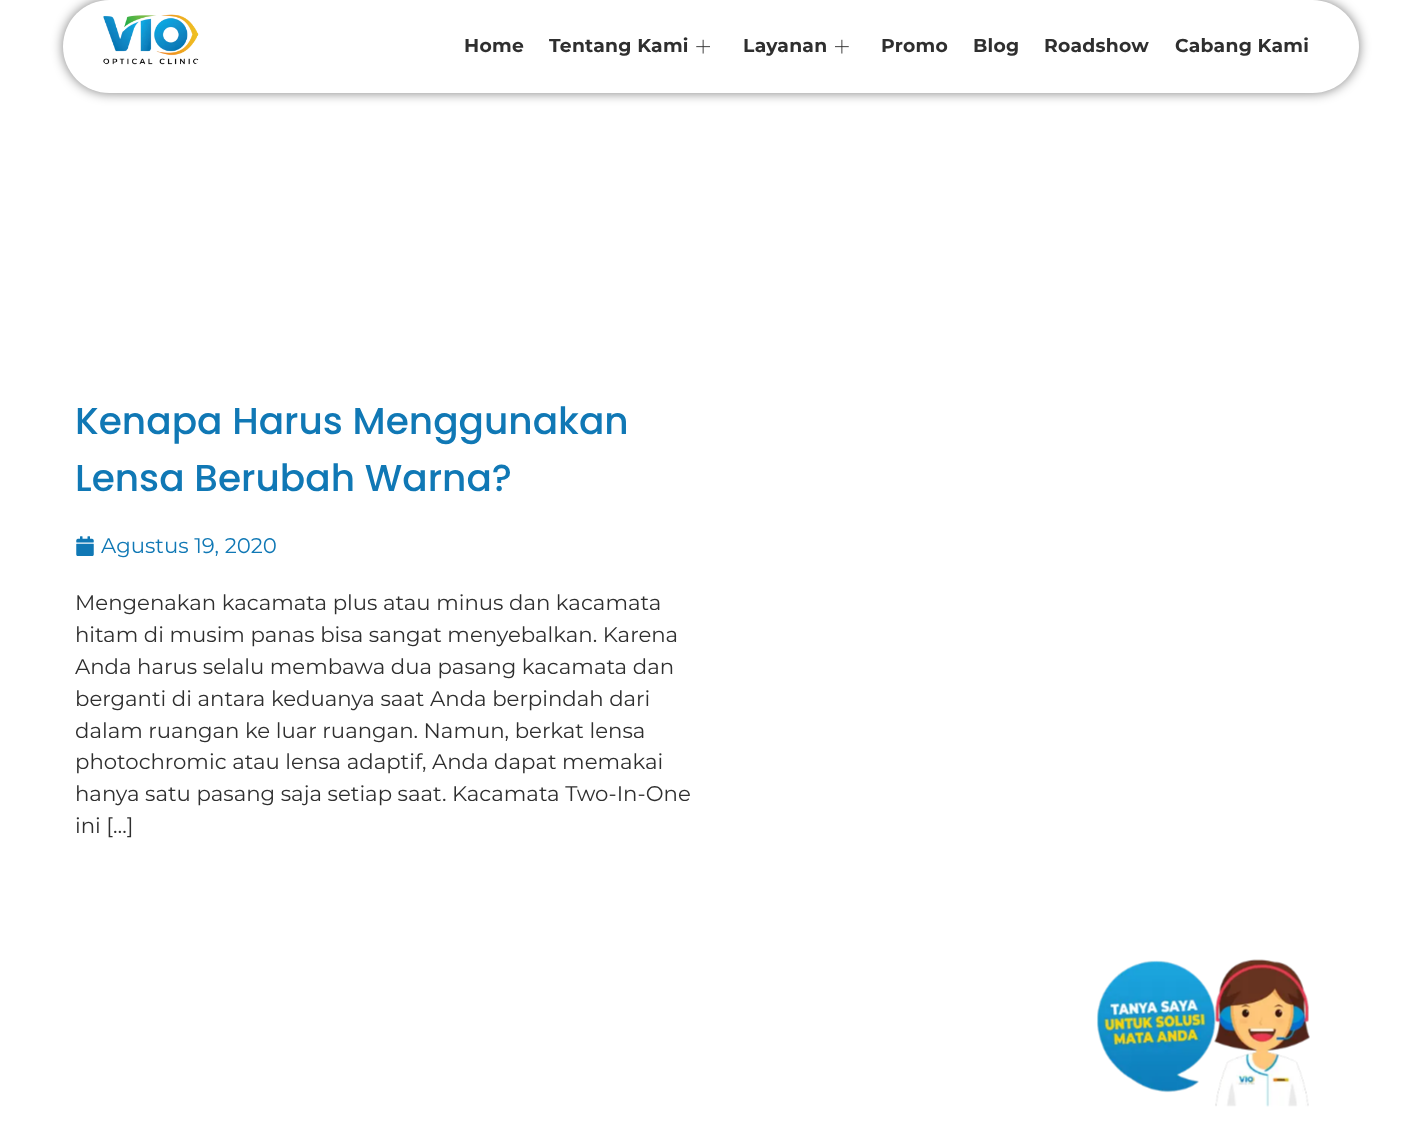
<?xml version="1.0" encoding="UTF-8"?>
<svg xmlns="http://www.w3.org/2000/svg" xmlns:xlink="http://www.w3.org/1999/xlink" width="1421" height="1128">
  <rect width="100%" height="100%" fill="#ffffff" />
  <rect x="63" width="1296" height="93" rx="46.5" fill="#000000" fill-opacity="0.5" filter="blur(6px)" />
  <rect x="63" width="1296" height="93" rx="46.5" fill="#ffffff" />
  <image x="103" y="14" width="96" height="51" xlink:href="image1.png" />
  <image x="696" y="39" width="14" height="15" xlink:href="image2.png" />
  <image x="835" y="39" width="14" height="15" xlink:href="image3.png" />
  <image x="76" y="536" width="18" height="20" xlink:href="image4.png" />
  <image x="1096" y="959" width="214" height="148" xlink:href="image5.png" />
  <text x="464" y="52" style="font-family: Montserrat; font-size: 18.75px; font-weight: bold; letter-spacing: 0.25px; fill: #2f2f2f">Home</text>
  <text x="549" y="52" style="font-family: Montserrat; font-size: 18.75px; font-weight: bold; letter-spacing: 0.25px; fill: #2f2f2f">Tentang Kami</text>
  <text x="743" y="52" style="font-family: Montserrat; font-size: 18.75px; font-weight: bold; letter-spacing: 0.25px; fill: #2f2f2f">Layanan</text>
  <text x="881" y="52" style="font-family: Montserrat; font-size: 18.75px; font-weight: bold; letter-spacing: 0.25px; fill: #2f2f2f">Promo</text>
  <text x="973" y="52" style="font-family: Montserrat; font-size: 18.75px; font-weight: bold; letter-spacing: 0.25px; fill: #2f2f2f">Blog</text>
  <text x="1044" y="52" style="font-family: Montserrat; font-size: 18.75px; font-weight: bold; letter-spacing: 0.25px; fill: #2f2f2f">Roadshow</text>
  <text x="1175" y="52" style="font-family: Montserrat; font-size: 18.75px; font-weight: bold; letter-spacing: 0.25px; fill: #2f2f2f">Cabang Kami</text>
  <text x="75" y="434" style="font-family: Poppins; font-size: 37.5px; font-weight: 500; fill: #1078b5">Kenapa Harus Menggunakan</text>
  <text x="75" y="491" style="font-family: Poppins; font-size: 37.5px; font-weight: 500; fill: #1078b5">Lensa Berubah Warna?</text>
  <text x="101" y="553" style="font-family: Montserrat; font-size: 21.25px; fill: #1078b5">Agustus 19, 2020</text>
  <text x="75" y="610" style="font-family: Montserrat; font-size: 21.25px; fill: #2f2f2f">Mengenakan kacamata plus atau minus dan kacamata</text>
  <text x="75" y="642" style="font-family: Montserrat; font-size: 21.25px; fill: #2f2f2f">hitam di musim panas bisa sangat menyebalkan. Karena</text>
  <text x="75" y="674" style="font-family: Montserrat; font-size: 21.25px; fill: #2f2f2f">Anda harus selalu membawa dua pasang kacamata dan</text>
  <text x="75" y="706" style="font-family: Montserrat; font-size: 21.25px; fill: #2f2f2f">berganti di antara keduanya saat Anda berpindah dari</text>
  <text x="75" y="738" style="font-family: Montserrat; font-size: 21.25px; fill: #2f2f2f">dalam ruangan ke luar ruangan. Namun, berkat lensa</text>
  <text x="75" y="769" style="font-family: Montserrat; font-size: 21.25px; fill: #2f2f2f">photochromic atau lensa adaptif, Anda dapat memakai</text>
  <text x="75" y="801" style="font-family: Montserrat; font-size: 21.25px; fill: #2f2f2f">hanya satu pasang saja setiap saat. Kacamata Two-In-One</text>
  <text x="75" y="833" style="font-family: Montserrat; font-size: 21.25px; fill: #2f2f2f">ini […]</text>
</svg>
